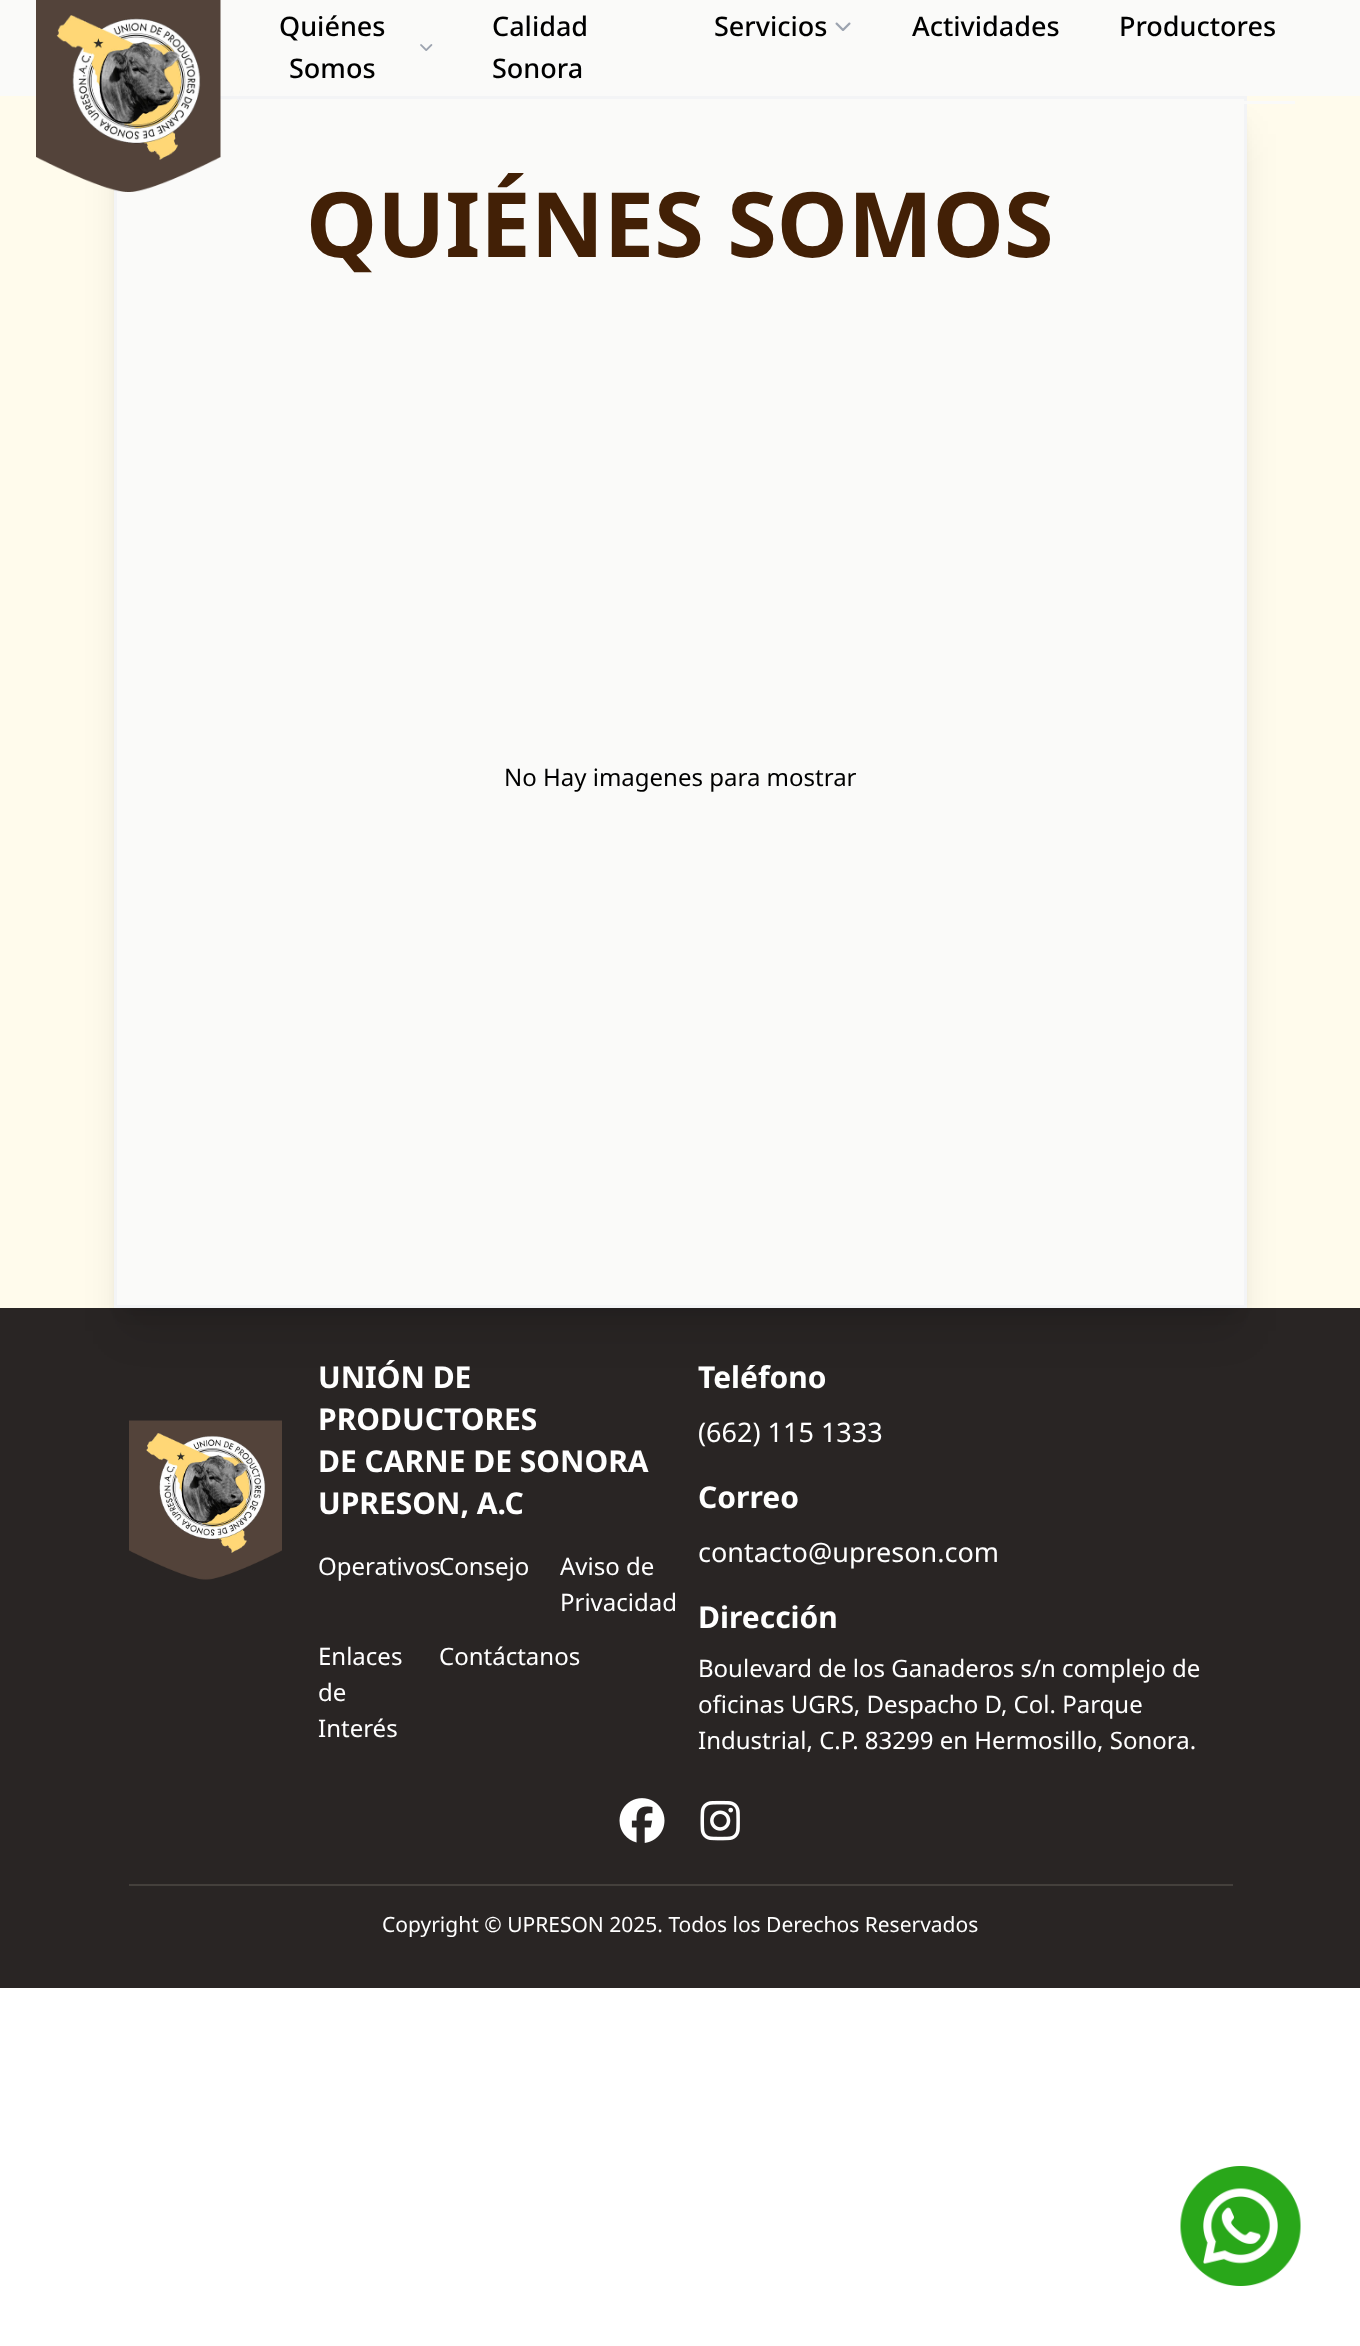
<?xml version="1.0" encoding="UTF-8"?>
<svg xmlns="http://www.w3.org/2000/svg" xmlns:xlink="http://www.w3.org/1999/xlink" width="1360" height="2346">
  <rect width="100%" height="100%" fill="#ffffff" />
  <rect width="1360" height="96" fill="#fafaf9" />
  <rect y="96" width="1360" height="1212" fill="#fffbec" />
  <rect y="1308" width="1360" height="680" fill="#292524" />
  <rect x="123" y="117" width="1115" height="1194" fill="#000000" fill-opacity="0.1" filter="blur(7.5px)" />
  <rect x="122" y="134" width="1117" height="1197" fill="#000000" fill-opacity="0.1" filter="blur(19px)" />
  <rect x="115.5" y="97.5" width="1130" height="1209" fill="#fafaf9" stroke="#f3f4f6" stroke-width="3" />
  <image x="36" y="0" width="185" height="192" xlink:href="image1.png" />
  <image x="420" y="44" width="13" height="7" xlink:href="image2.png" />
  <image x="835" y="22" width="16" height="9" xlink:href="image3.png" />
  <rect x="1244" y="101" width="51" height="3" fill="#fafaf9" />
  <image x="129" y="1420" width="153" height="160" xlink:href="image4.png" />
  <image x="619" y="1798" width="46" height="45" xlink:href="image5.png" />
  <image x="700" y="1800" width="40" height="41" xlink:href="image6.png" />
  <rect x="129" y="1884" width="1104" height="2" fill="#44403c" />
  <image x="1180" y="2166" width="121" height="120" xlink:href="image7.png" />
  <text x="279" y="36" style="font-family: Noto Sans; font-size: 27px; font-weight: 500; fill: #000000">Quiénes</text>
  <text x="289" y="78" style="font-family: Noto Sans; font-size: 27px; font-weight: 500; fill: #000000">Somos</text>
  <text x="492" y="36" style="font-family: Noto Sans; font-size: 27px; font-weight: 500; fill: #000000">Calidad</text>
  <text x="492" y="78" style="font-family: Noto Sans; font-size: 27px; font-weight: 500; fill: #000000">Sonora</text>
  <text x="714" y="36" style="font-family: Noto Sans; font-size: 27px; font-weight: 500; fill: #000000">Servicios</text>
  <text x="912" y="36" style="font-family: Noto Sans; font-size: 27px; font-weight: 500; fill: #000000">Actividades</text>
  <text x="1119" y="36" style="font-family: Noto Sans; font-size: 27px; font-weight: 500; fill: #000000">Productores</text>
  <text x="306" y="257" style="font-family: Noto Sans; font-size: 90px; font-weight: bold; fill: #422006">QUIÉNES SOMOS</text>
  <text x="504" y="786" style="font-family: Noto Sans; font-size: 24px; fill: #000000">No Hay imagenes para mostrar</text>
  <text x="318" y="1388" style="font-family: Noto Sans; font-size: 30px; font-weight: bold; fill: #ffffff">UNIÓN DE</text>
  <text x="318" y="1430" style="font-family: Noto Sans; font-size: 30px; font-weight: bold; fill: #ffffff">PRODUCTORES</text>
  <text x="318" y="1472" style="font-family: Noto Sans; font-size: 30px; font-weight: bold; fill: #ffffff">DE CARNE DE SONORA</text>
  <text x="318" y="1514" style="font-family: Noto Sans; font-size: 30px; font-weight: bold; fill: #ffffff">UPRESON, A.C</text>
  <text x="318" y="1575" style="font-family: Noto Sans; font-size: 24px; fill: #ffffff">Operativos</text>
  <text x="439" y="1575" style="font-family: Noto Sans; font-size: 24px; fill: #ffffff">Consejo</text>
  <text x="560" y="1575" style="font-family: Noto Sans; font-size: 24px; fill: #ffffff">Aviso de</text>
  <text x="560" y="1611" style="font-family: Noto Sans; font-size: 24px; fill: #ffffff">Privacidad</text>
  <text x="318" y="1665" style="font-family: Noto Sans; font-size: 24px; fill: #ffffff">Enlaces</text>
  <text x="318" y="1701" style="font-family: Noto Sans; font-size: 24px; fill: #ffffff">de</text>
  <text x="318" y="1737" style="font-family: Noto Sans; font-size: 24px; fill: #ffffff">Interés</text>
  <text x="439" y="1665" style="font-family: Noto Sans; font-size: 24px; fill: #ffffff">Contáctanos</text>
  <text x="698" y="1388" style="font-family: Noto Sans; font-size: 30px; font-weight: bold; fill: #ffffff">Teléfono</text>
  <text x="698" y="1442" style="font-family: Noto Sans; font-size: 27px; fill: #ffffff">(662) 115 1333</text>
  <text x="698" y="1508" style="font-family: Noto Sans; font-size: 30px; font-weight: bold; fill: #ffffff">Correo</text>
  <text x="698" y="1562" style="font-family: Noto Sans; font-size: 27px; fill: #ffffff">contacto@upreson.com</text>
  <text x="698" y="1628" style="font-family: Noto Sans; font-size: 30px; font-weight: bold; fill: #ffffff">Dirección</text>
  <text x="698" y="1677" style="font-family: Noto Sans; font-size: 24px; fill: #ffffff">Boulevard de los Ganaderos s/n complejo de</text>
  <text x="698" y="1713" style="font-family: Noto Sans; font-size: 24px; fill: #ffffff">oficinas UGRS, Despacho D, Col. Parque</text>
  <text x="698" y="1749" style="font-family: Noto Sans; font-size: 24px; fill: #ffffff">Industrial, C.P. 83299 en Hermosillo, Sonora.</text>
  <text x="382" y="1932" style="font-family: Noto Sans; font-size: 21px; fill: #ffffff">Copyright © UPRESON 2025. Todos los Derechos Reservados</text>
</svg>
